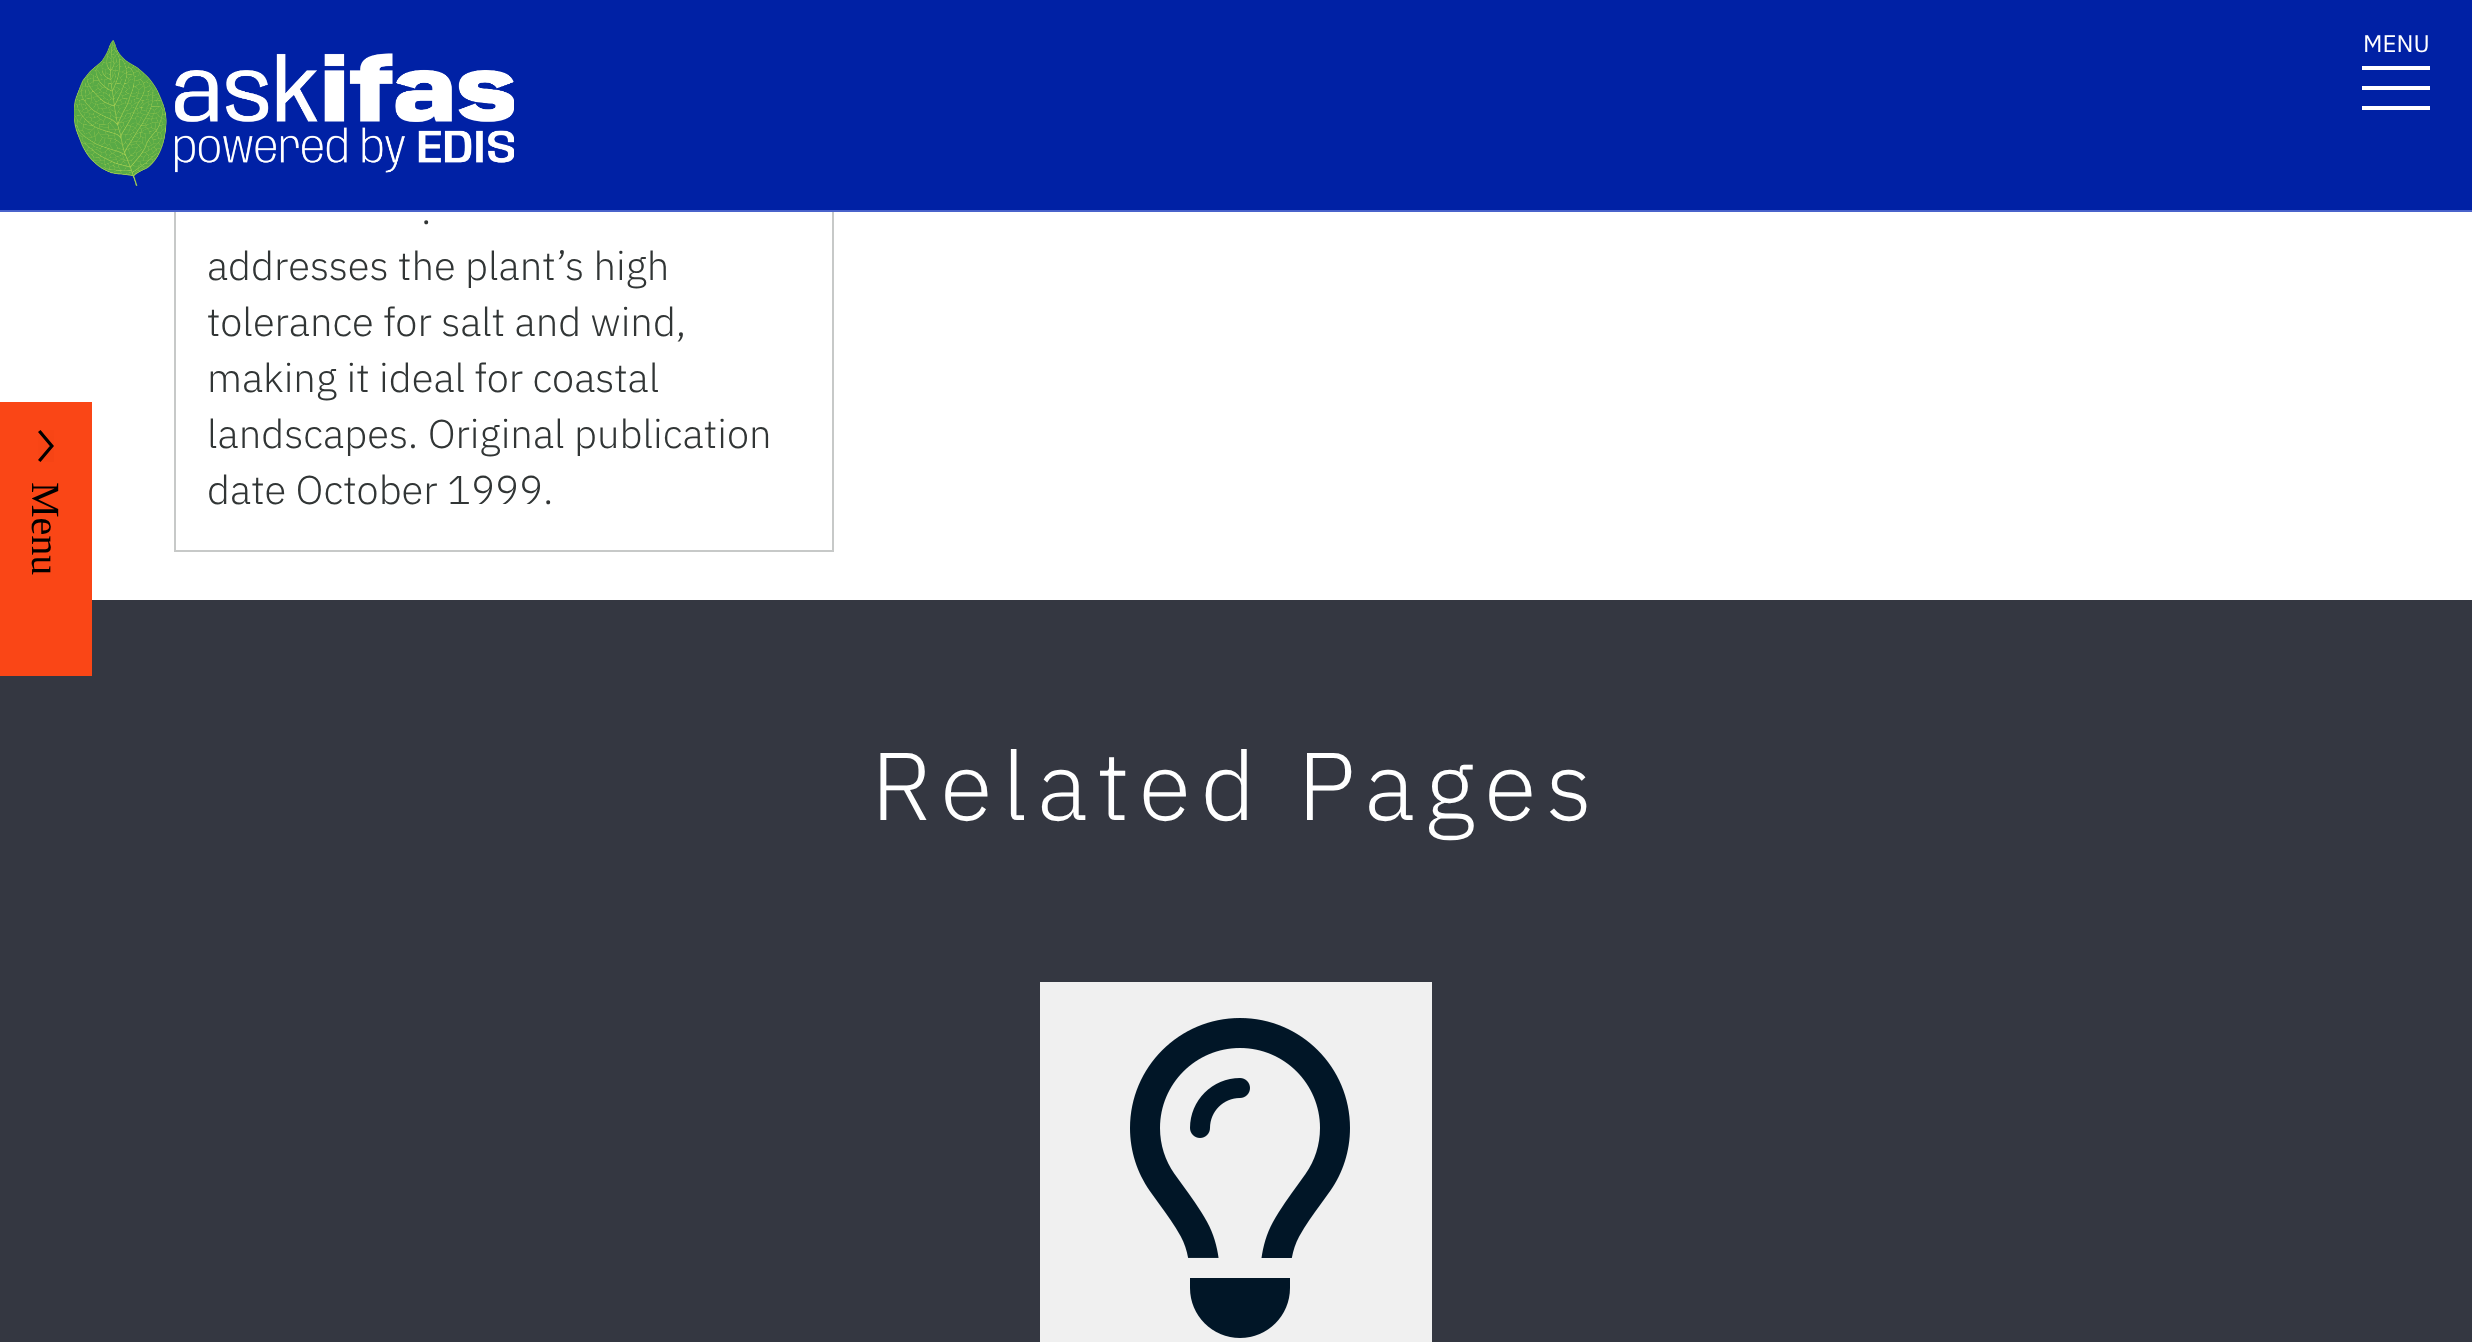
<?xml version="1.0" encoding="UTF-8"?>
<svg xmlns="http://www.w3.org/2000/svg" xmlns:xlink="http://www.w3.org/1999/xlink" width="2472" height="1342">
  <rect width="100%" height="100%" fill="#ffffff" />
  <rect x="175" y="-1" width="658" height="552" fill="none" stroke="#c7c9c8" stroke-width="2" />
  <rect width="2472" height="210" fill="#0021a5" />
  <rect y="210" width="2472" height="2" fill="#4a63cb" />
  <image x="74" y="40" width="440" height="146" xlink:href="image1.png" />
  <rect x="2362" y="86" width="68" height="4" fill="#ffffff" />
  <rect x="2362" y="66" width="68" height="4" fill="#ffffff" />
  <rect x="2362" y="106" width="68" height="4" fill="#ffffff" />
  <rect y="600" width="2472" height="742" fill="#343741" />
  <rect y="402" width="92" height="274" fill="#fa4616" />
  <image x="38" y="430" width="16" height="32" xlink:href="image2.png" />
  <rect x="1040" y="982" width="392" height="360" fill="#f0f0f0" />
  <image x="1130" y="1018" width="220" height="320" xlink:href="image3.png" />
  <text x="2363" y="52" style="font-family: IBM Plex Sans; font-size: 24px; fill: #ffffff">MENU</text>
  <text x="421" y="224" style="font-family: IBM Plex Sans; font-size: 40px; font-weight: 300; fill: #313535">.</text>
  <text x="207" y="280" style="font-family: IBM Plex Sans; font-size: 40px; font-weight: 300; fill: #313535">addresses the plant’s high</text>
  <text x="207" y="336" style="font-family: IBM Plex Sans; font-size: 40px; font-weight: 300; fill: #313535">tolerance for salt and wind,</text>
  <text x="207" y="392" style="font-family: IBM Plex Sans; font-size: 40px; font-weight: 300; fill: #313535">making it ideal for coastal</text>
  <text x="207" y="448" style="font-family: IBM Plex Sans; font-size: 40px; font-weight: 300; fill: #313535">landscapes. Original publication</text>
  <text x="207" y="504" style="font-family: IBM Plex Sans; font-size: 40px; font-weight: 300; fill: #313535">date October 1999.</text>
  <text x="32" y="482" transform="rotate(90 32 482)" style="font-family: Liberation Serif; font-size: 40px; fill: #000000">Menu</text>
  <text x="871" y="820" style="font-family: IBM Plex Sans; font-size: 96px; font-weight: 300; letter-spacing: 9.6px; fill: #ffffff">Related Pages</text>
</svg>
